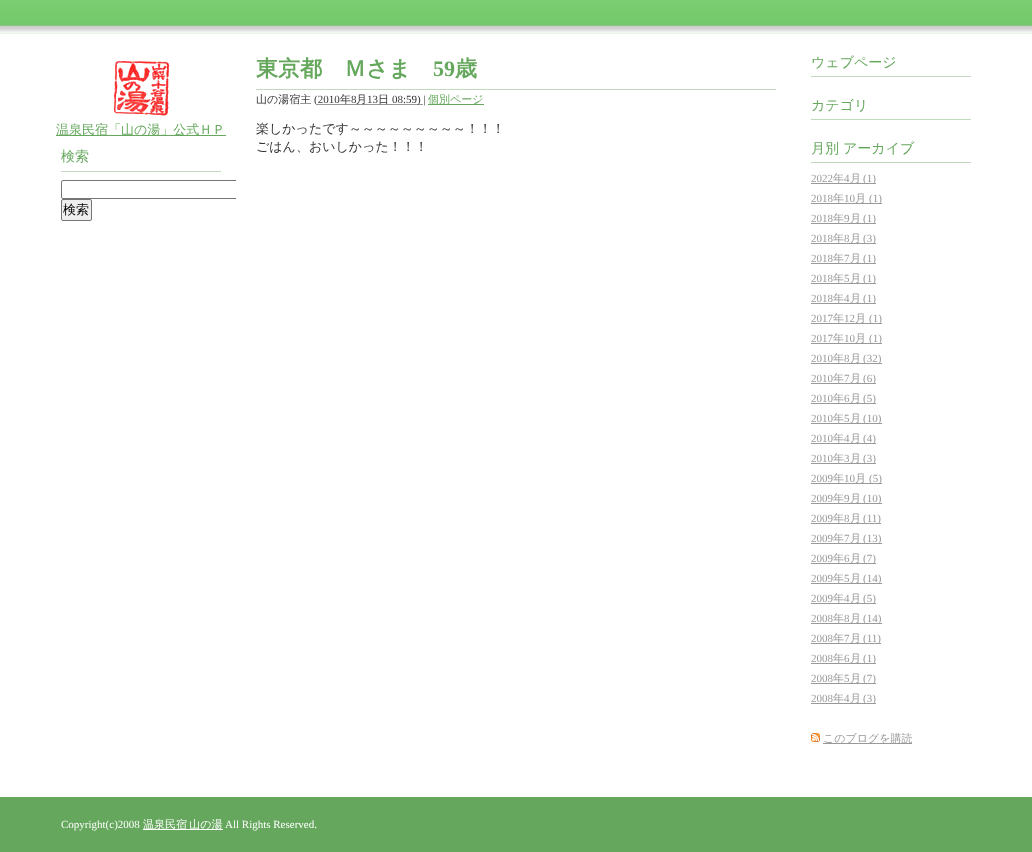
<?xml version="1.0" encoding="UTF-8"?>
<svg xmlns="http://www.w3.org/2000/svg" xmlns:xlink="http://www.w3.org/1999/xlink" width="1032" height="852">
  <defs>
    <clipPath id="clip1"><rect x="46" y="148" width="190" height="93" /></clipPath>
  </defs>
  <rect width="100%" height="100%" fill="#ffffff" />
  <image x="0" y="0" width="1032" height="34" xlink:href="image1.png" />
  <rect x="256" y="89" width="520" height="1" fill="#c1dabe" />
  <path d="M 317.5 104.5 h 106" fill="none" stroke="#333333" stroke-dasharray="1 1" />
  <rect x="428" y="104" width="56" height="1" fill="#65a85d" />
  <rect x="811" y="76" width="160" height="1" fill="#c1dabe" />
  <rect x="811" y="119" width="160" height="1" fill="#c1dabe" />
  <rect x="811" y="162" width="160" height="1" fill="#c1dabe" />
  <rect x="811" y="183" width="65" height="1" fill="#999999" />
  <rect x="811" y="203" width="71" height="1" fill="#999999" />
  <rect x="811" y="223" width="65" height="1" fill="#999999" />
  <rect x="811" y="243" width="65" height="1" fill="#999999" />
  <rect x="811" y="263" width="65" height="1" fill="#999999" />
  <rect x="811" y="283" width="65" height="1" fill="#999999" />
  <rect x="811" y="303" width="65" height="1" fill="#999999" />
  <rect x="811" y="323" width="71" height="1" fill="#999999" />
  <rect x="811" y="343" width="71" height="1" fill="#999999" />
  <rect x="811" y="363" width="71" height="1" fill="#999999" />
  <rect x="811" y="383" width="65" height="1" fill="#999999" />
  <rect x="811" y="403" width="65" height="1" fill="#999999" />
  <rect x="811" y="423" width="71" height="1" fill="#999999" />
  <rect x="811" y="443" width="65" height="1" fill="#999999" />
  <rect x="811" y="463" width="65" height="1" fill="#999999" />
  <rect x="811" y="483" width="71" height="1" fill="#999999" />
  <rect x="811" y="503" width="71" height="1" fill="#999999" />
  <rect x="811" y="523" width="70" height="1" fill="#999999" />
  <rect x="811" y="543" width="71" height="1" fill="#999999" />
  <rect x="811" y="563" width="65" height="1" fill="#999999" />
  <rect x="811" y="583" width="71" height="1" fill="#999999" />
  <rect x="811" y="603" width="65" height="1" fill="#999999" />
  <rect x="811" y="623" width="71" height="1" fill="#999999" />
  <rect x="811" y="643" width="70" height="1" fill="#999999" />
  <rect x="811" y="663" width="65" height="1" fill="#999999" />
  <rect x="811" y="683" width="65" height="1" fill="#999999" />
  <rect x="811" y="703" width="65" height="1" fill="#999999" />
  <image x="811" y="733" width="9" height="9" xlink:href="image2.png" />
  <rect x="823" y="743" width="89" height="1" fill="#999999" />
  <image x="114" y="61" width="56" height="55" xlink:href="image3.png" />
  <rect x="56" y="135" width="170" height="1" fill="#65a85d" />
  <rect x="61" y="171" width="160" height="1" fill="#c1dabe" />
  <g clip-path="url(#clip1)">
    <rect x="61.5" y="180.5" width="180" height="18" rx="1.5" fill="none" stroke="#767676" />
  </g>
  <rect x="61.5" y="199.5" width="30" height="21" rx="1.5" fill="#efefef" stroke="#767676" />
  <rect y="797" width="1032" height="55" fill="#65a85d" />
  <rect x="143" y="829" width="80" height="1" fill="#ffffff" />
  <text x="256" y="76" style="font-family: WenQuanYi Zen Hei; font-size: 22px; font-weight: bold; fill: #65a85d">東京都　Ｍさま</text>
  <text x="433" y="76" style="font-family: Liberation Serif; font-size: 22px; font-weight: bold; fill: #65a85d">59</text>
  <text x="455" y="76" style="font-family: WenQuanYi Zen Hei; font-size: 22px; font-weight: bold; fill: #65a85d">歳</text>
  <text x="256" y="103" style="font-family: WenQuanYi Zen Hei; font-size: 11px; font-weight: 500; fill: #333333">山の湯宿主</text>
  <text x="314" y="103" style="font-family: Liberation Serif; font-size: 11px; fill: #333333">(2010</text>
  <text x="340" y="103" style="font-family: WenQuanYi Zen Hei; font-size: 11px; font-weight: 500; fill: #333333">年</text>
  <text x="351" y="103" style="font-family: Liberation Serif; font-size: 11px; fill: #333333">8</text>
  <text x="356" y="103" style="font-family: WenQuanYi Zen Hei; font-size: 11px; font-weight: 500; fill: #333333">月</text>
  <text x="367" y="103" style="font-family: Liberation Serif; font-size: 11px; fill: #333333">13</text>
  <text x="378" y="103" style="font-family: WenQuanYi Zen Hei; font-size: 11px; font-weight: 500; fill: #333333">日</text>
  <text x="392" y="103" style="font-family: Liberation Serif; font-size: 11px; fill: #333333">08:59) |</text>
  <text x="428" y="103" style="font-family: WenQuanYi Zen Hei; font-size: 11px; font-weight: 500; fill: #65a85d">個別ページ</text>
  <text x="256" y="133" style="font-family: WenQuanYi Zen Hei; font-size: 13px; font-weight: 500; fill: #333333">楽しかったです～～～～～～～～～！！！</text>
  <text x="256" y="151" style="font-family: WenQuanYi Zen Hei; font-size: 13px; font-weight: 500; fill: #333333">ごはん、おいしかった！！！</text>
  <text x="811" y="67" style="font-family: WenQuanYi Zen Hei; font-size: 14px; font-weight: 500; fill: #65a85d">ウェブページ</text>
  <text x="811" y="110" style="font-family: WenQuanYi Zen Hei; font-size: 14px; font-weight: 500; fill: #65a85d">カテゴリ</text>
  <text x="811" y="153" style="font-family: WenQuanYi Zen Hei; font-size: 14px; font-weight: 500; fill: #65a85d">月別</text>
  <text x="843" y="153" style="font-family: WenQuanYi Zen Hei; font-size: 14px; font-weight: 500; fill: #65a85d">アーカイブ</text>
  <text x="811" y="182" style="font-family: Liberation Serif; font-size: 11px; fill: #999999">2022</text>
  <text x="833" y="182" style="font-family: WenQuanYi Zen Hei; font-size: 11px; font-weight: 500; fill: #999999">年</text>
  <text x="844" y="182" style="font-family: Liberation Serif; font-size: 11px; fill: #999999">4</text>
  <text x="850" y="182" style="font-family: WenQuanYi Zen Hei; font-size: 11px; font-weight: 500; fill: #999999">月</text>
  <text x="863" y="182" style="font-family: Liberation Serif; font-size: 11px; fill: #999999">(1)</text>
  <text x="811" y="202" style="font-family: Liberation Serif; font-size: 11px; fill: #999999">2018</text>
  <text x="833" y="202" style="font-family: WenQuanYi Zen Hei; font-size: 11px; font-weight: 500; fill: #999999">年</text>
  <text x="844" y="202" style="font-family: Liberation Serif; font-size: 11px; fill: #999999">10</text>
  <text x="855" y="202" style="font-family: WenQuanYi Zen Hei; font-size: 11px; font-weight: 500; fill: #999999">月</text>
  <text x="869" y="202" style="font-family: Liberation Serif; font-size: 11px; fill: #999999">(1)</text>
  <text x="811" y="222" style="font-family: Liberation Serif; font-size: 11px; fill: #999999">2018</text>
  <text x="833" y="222" style="font-family: WenQuanYi Zen Hei; font-size: 11px; font-weight: 500; fill: #999999">年</text>
  <text x="844" y="222" style="font-family: Liberation Serif; font-size: 11px; fill: #999999">9</text>
  <text x="850" y="222" style="font-family: WenQuanYi Zen Hei; font-size: 11px; font-weight: 500; fill: #999999">月</text>
  <text x="863" y="222" style="font-family: Liberation Serif; font-size: 11px; fill: #999999">(1)</text>
  <text x="811" y="242" style="font-family: Liberation Serif; font-size: 11px; fill: #999999">2018</text>
  <text x="833" y="242" style="font-family: WenQuanYi Zen Hei; font-size: 11px; font-weight: 500; fill: #999999">年</text>
  <text x="844" y="242" style="font-family: Liberation Serif; font-size: 11px; fill: #999999">8</text>
  <text x="850" y="242" style="font-family: WenQuanYi Zen Hei; font-size: 11px; font-weight: 500; fill: #999999">月</text>
  <text x="863" y="242" style="font-family: Liberation Serif; font-size: 11px; fill: #999999">(3)</text>
  <text x="811" y="262" style="font-family: Liberation Serif; font-size: 11px; fill: #999999">2018</text>
  <text x="833" y="262" style="font-family: WenQuanYi Zen Hei; font-size: 11px; font-weight: 500; fill: #999999">年</text>
  <text x="844" y="262" style="font-family: Liberation Serif; font-size: 11px; fill: #999999">7</text>
  <text x="850" y="262" style="font-family: WenQuanYi Zen Hei; font-size: 11px; font-weight: 500; fill: #999999">月</text>
  <text x="863" y="262" style="font-family: Liberation Serif; font-size: 11px; fill: #999999">(1)</text>
  <text x="811" y="282" style="font-family: Liberation Serif; font-size: 11px; fill: #999999">2018</text>
  <text x="833" y="282" style="font-family: WenQuanYi Zen Hei; font-size: 11px; font-weight: 500; fill: #999999">年</text>
  <text x="844" y="282" style="font-family: Liberation Serif; font-size: 11px; fill: #999999">5</text>
  <text x="850" y="282" style="font-family: WenQuanYi Zen Hei; font-size: 11px; font-weight: 500; fill: #999999">月</text>
  <text x="863" y="282" style="font-family: Liberation Serif; font-size: 11px; fill: #999999">(1)</text>
  <text x="811" y="302" style="font-family: Liberation Serif; font-size: 11px; fill: #999999">2018</text>
  <text x="833" y="302" style="font-family: WenQuanYi Zen Hei; font-size: 11px; font-weight: 500; fill: #999999">年</text>
  <text x="844" y="302" style="font-family: Liberation Serif; font-size: 11px; fill: #999999">4</text>
  <text x="850" y="302" style="font-family: WenQuanYi Zen Hei; font-size: 11px; font-weight: 500; fill: #999999">月</text>
  <text x="863" y="302" style="font-family: Liberation Serif; font-size: 11px; fill: #999999">(1)</text>
  <text x="811" y="322" style="font-family: Liberation Serif; font-size: 11px; fill: #999999">2017</text>
  <text x="833" y="322" style="font-family: WenQuanYi Zen Hei; font-size: 11px; font-weight: 500; fill: #999999">年</text>
  <text x="844" y="322" style="font-family: Liberation Serif; font-size: 11px; fill: #999999">12</text>
  <text x="855" y="322" style="font-family: WenQuanYi Zen Hei; font-size: 11px; font-weight: 500; fill: #999999">月</text>
  <text x="869" y="322" style="font-family: Liberation Serif; font-size: 11px; fill: #999999">(1)</text>
  <text x="811" y="342" style="font-family: Liberation Serif; font-size: 11px; fill: #999999">2017</text>
  <text x="833" y="342" style="font-family: WenQuanYi Zen Hei; font-size: 11px; font-weight: 500; fill: #999999">年</text>
  <text x="844" y="342" style="font-family: Liberation Serif; font-size: 11px; fill: #999999">10</text>
  <text x="855" y="342" style="font-family: WenQuanYi Zen Hei; font-size: 11px; font-weight: 500; fill: #999999">月</text>
  <text x="869" y="342" style="font-family: Liberation Serif; font-size: 11px; fill: #999999">(1)</text>
  <text x="811" y="362" style="font-family: Liberation Serif; font-size: 11px; fill: #999999">2010</text>
  <text x="833" y="362" style="font-family: WenQuanYi Zen Hei; font-size: 11px; font-weight: 500; fill: #999999">年</text>
  <text x="844" y="362" style="font-family: Liberation Serif; font-size: 11px; fill: #999999">8</text>
  <text x="850" y="362" style="font-family: WenQuanYi Zen Hei; font-size: 11px; font-weight: 500; fill: #999999">月</text>
  <text x="863" y="362" style="font-family: Liberation Serif; font-size: 11px; fill: #999999">(32)</text>
  <text x="811" y="382" style="font-family: Liberation Serif; font-size: 11px; fill: #999999">2010</text>
  <text x="833" y="382" style="font-family: WenQuanYi Zen Hei; font-size: 11px; font-weight: 500; fill: #999999">年</text>
  <text x="844" y="382" style="font-family: Liberation Serif; font-size: 11px; fill: #999999">7</text>
  <text x="850" y="382" style="font-family: WenQuanYi Zen Hei; font-size: 11px; font-weight: 500; fill: #999999">月</text>
  <text x="863" y="382" style="font-family: Liberation Serif; font-size: 11px; fill: #999999">(6)</text>
  <text x="811" y="402" style="font-family: Liberation Serif; font-size: 11px; fill: #999999">2010</text>
  <text x="833" y="402" style="font-family: WenQuanYi Zen Hei; font-size: 11px; font-weight: 500; fill: #999999">年</text>
  <text x="844" y="402" style="font-family: Liberation Serif; font-size: 11px; fill: #999999">6</text>
  <text x="850" y="402" style="font-family: WenQuanYi Zen Hei; font-size: 11px; font-weight: 500; fill: #999999">月</text>
  <text x="863" y="402" style="font-family: Liberation Serif; font-size: 11px; fill: #999999">(5)</text>
  <text x="811" y="422" style="font-family: Liberation Serif; font-size: 11px; fill: #999999">2010</text>
  <text x="833" y="422" style="font-family: WenQuanYi Zen Hei; font-size: 11px; font-weight: 500; fill: #999999">年</text>
  <text x="844" y="422" style="font-family: Liberation Serif; font-size: 11px; fill: #999999">5</text>
  <text x="850" y="422" style="font-family: WenQuanYi Zen Hei; font-size: 11px; font-weight: 500; fill: #999999">月</text>
  <text x="863" y="422" style="font-family: Liberation Serif; font-size: 11px; fill: #999999">(10)</text>
  <text x="811" y="442" style="font-family: Liberation Serif; font-size: 11px; fill: #999999">2010</text>
  <text x="833" y="442" style="font-family: WenQuanYi Zen Hei; font-size: 11px; font-weight: 500; fill: #999999">年</text>
  <text x="844" y="442" style="font-family: Liberation Serif; font-size: 11px; fill: #999999">4</text>
  <text x="850" y="442" style="font-family: WenQuanYi Zen Hei; font-size: 11px; font-weight: 500; fill: #999999">月</text>
  <text x="863" y="442" style="font-family: Liberation Serif; font-size: 11px; fill: #999999">(4)</text>
  <text x="811" y="462" style="font-family: Liberation Serif; font-size: 11px; fill: #999999">2010</text>
  <text x="833" y="462" style="font-family: WenQuanYi Zen Hei; font-size: 11px; font-weight: 500; fill: #999999">年</text>
  <text x="844" y="462" style="font-family: Liberation Serif; font-size: 11px; fill: #999999">3</text>
  <text x="850" y="462" style="font-family: WenQuanYi Zen Hei; font-size: 11px; font-weight: 500; fill: #999999">月</text>
  <text x="863" y="462" style="font-family: Liberation Serif; font-size: 11px; fill: #999999">(3)</text>
  <text x="811" y="482" style="font-family: Liberation Serif; font-size: 11px; fill: #999999">2009</text>
  <text x="833" y="482" style="font-family: WenQuanYi Zen Hei; font-size: 11px; font-weight: 500; fill: #999999">年</text>
  <text x="844" y="482" style="font-family: Liberation Serif; font-size: 11px; fill: #999999">10</text>
  <text x="855" y="482" style="font-family: WenQuanYi Zen Hei; font-size: 11px; font-weight: 500; fill: #999999">月</text>
  <text x="869" y="482" style="font-family: Liberation Serif; font-size: 11px; fill: #999999">(5)</text>
  <text x="811" y="502" style="font-family: Liberation Serif; font-size: 11px; fill: #999999">2009</text>
  <text x="833" y="502" style="font-family: WenQuanYi Zen Hei; font-size: 11px; font-weight: 500; fill: #999999">年</text>
  <text x="844" y="502" style="font-family: Liberation Serif; font-size: 11px; fill: #999999">9</text>
  <text x="850" y="502" style="font-family: WenQuanYi Zen Hei; font-size: 11px; font-weight: 500; fill: #999999">月</text>
  <text x="863" y="502" style="font-family: Liberation Serif; font-size: 11px; fill: #999999">(10)</text>
  <text x="811" y="522" style="font-family: Liberation Serif; font-size: 11px; fill: #999999">2009</text>
  <text x="833" y="522" style="font-family: WenQuanYi Zen Hei; font-size: 11px; font-weight: 500; fill: #999999">年</text>
  <text x="844" y="522" style="font-family: Liberation Serif; font-size: 11px; fill: #999999">8</text>
  <text x="850" y="522" style="font-family: WenQuanYi Zen Hei; font-size: 11px; font-weight: 500; fill: #999999">月</text>
  <text x="863" y="522" style="font-family: Liberation Serif; font-size: 11px; fill: #999999">(11)</text>
  <text x="811" y="542" style="font-family: Liberation Serif; font-size: 11px; fill: #999999">2009</text>
  <text x="833" y="542" style="font-family: WenQuanYi Zen Hei; font-size: 11px; font-weight: 500; fill: #999999">年</text>
  <text x="844" y="542" style="font-family: Liberation Serif; font-size: 11px; fill: #999999">7</text>
  <text x="850" y="542" style="font-family: WenQuanYi Zen Hei; font-size: 11px; font-weight: 500; fill: #999999">月</text>
  <text x="863" y="542" style="font-family: Liberation Serif; font-size: 11px; fill: #999999">(13)</text>
  <text x="811" y="562" style="font-family: Liberation Serif; font-size: 11px; fill: #999999">2009</text>
  <text x="833" y="562" style="font-family: WenQuanYi Zen Hei; font-size: 11px; font-weight: 500; fill: #999999">年</text>
  <text x="844" y="562" style="font-family: Liberation Serif; font-size: 11px; fill: #999999">6</text>
  <text x="850" y="562" style="font-family: WenQuanYi Zen Hei; font-size: 11px; font-weight: 500; fill: #999999">月</text>
  <text x="863" y="562" style="font-family: Liberation Serif; font-size: 11px; fill: #999999">(7)</text>
  <text x="811" y="582" style="font-family: Liberation Serif; font-size: 11px; fill: #999999">2009</text>
  <text x="833" y="582" style="font-family: WenQuanYi Zen Hei; font-size: 11px; font-weight: 500; fill: #999999">年</text>
  <text x="844" y="582" style="font-family: Liberation Serif; font-size: 11px; fill: #999999">5</text>
  <text x="850" y="582" style="font-family: WenQuanYi Zen Hei; font-size: 11px; font-weight: 500; fill: #999999">月</text>
  <text x="863" y="582" style="font-family: Liberation Serif; font-size: 11px; fill: #999999">(14)</text>
  <text x="811" y="602" style="font-family: Liberation Serif; font-size: 11px; fill: #999999">2009</text>
  <text x="833" y="602" style="font-family: WenQuanYi Zen Hei; font-size: 11px; font-weight: 500; fill: #999999">年</text>
  <text x="844" y="602" style="font-family: Liberation Serif; font-size: 11px; fill: #999999">4</text>
  <text x="850" y="602" style="font-family: WenQuanYi Zen Hei; font-size: 11px; font-weight: 500; fill: #999999">月</text>
  <text x="863" y="602" style="font-family: Liberation Serif; font-size: 11px; fill: #999999">(5)</text>
  <text x="811" y="622" style="font-family: Liberation Serif; font-size: 11px; fill: #999999">2008</text>
  <text x="833" y="622" style="font-family: WenQuanYi Zen Hei; font-size: 11px; font-weight: 500; fill: #999999">年</text>
  <text x="844" y="622" style="font-family: Liberation Serif; font-size: 11px; fill: #999999">8</text>
  <text x="850" y="622" style="font-family: WenQuanYi Zen Hei; font-size: 11px; font-weight: 500; fill: #999999">月</text>
  <text x="863" y="622" style="font-family: Liberation Serif; font-size: 11px; fill: #999999">(14)</text>
  <text x="811" y="642" style="font-family: Liberation Serif; font-size: 11px; fill: #999999">2008</text>
  <text x="833" y="642" style="font-family: WenQuanYi Zen Hei; font-size: 11px; font-weight: 500; fill: #999999">年</text>
  <text x="844" y="642" style="font-family: Liberation Serif; font-size: 11px; fill: #999999">7</text>
  <text x="850" y="642" style="font-family: WenQuanYi Zen Hei; font-size: 11px; font-weight: 500; fill: #999999">月</text>
  <text x="863" y="642" style="font-family: Liberation Serif; font-size: 11px; fill: #999999">(11)</text>
  <text x="811" y="662" style="font-family: Liberation Serif; font-size: 11px; fill: #999999">2008</text>
  <text x="833" y="662" style="font-family: WenQuanYi Zen Hei; font-size: 11px; font-weight: 500; fill: #999999">年</text>
  <text x="844" y="662" style="font-family: Liberation Serif; font-size: 11px; fill: #999999">6</text>
  <text x="850" y="662" style="font-family: WenQuanYi Zen Hei; font-size: 11px; font-weight: 500; fill: #999999">月</text>
  <text x="863" y="662" style="font-family: Liberation Serif; font-size: 11px; fill: #999999">(1)</text>
  <text x="811" y="682" style="font-family: Liberation Serif; font-size: 11px; fill: #999999">2008</text>
  <text x="833" y="682" style="font-family: WenQuanYi Zen Hei; font-size: 11px; font-weight: 500; fill: #999999">年</text>
  <text x="844" y="682" style="font-family: Liberation Serif; font-size: 11px; fill: #999999">5</text>
  <text x="850" y="682" style="font-family: WenQuanYi Zen Hei; font-size: 11px; font-weight: 500; fill: #999999">月</text>
  <text x="863" y="682" style="font-family: Liberation Serif; font-size: 11px; fill: #999999">(7)</text>
  <text x="811" y="702" style="font-family: Liberation Serif; font-size: 11px; fill: #999999">2008</text>
  <text x="833" y="702" style="font-family: WenQuanYi Zen Hei; font-size: 11px; font-weight: 500; fill: #999999">年</text>
  <text x="844" y="702" style="font-family: Liberation Serif; font-size: 11px; fill: #999999">4</text>
  <text x="850" y="702" style="font-family: WenQuanYi Zen Hei; font-size: 11px; font-weight: 500; fill: #999999">月</text>
  <text x="863" y="702" style="font-family: Liberation Serif; font-size: 11px; fill: #999999">(3)</text>
  <text x="823" y="742" style="font-family: WenQuanYi Zen Hei; font-size: 11px; font-weight: 500; fill: #999999">このブログを購読</text>
  <text x="56" y="134" style="font-family: WenQuanYi Zen Hei; font-size: 13px; font-weight: 500; fill: #65a85d">温泉民宿「山の湯」公式ＨＰ</text>
  <text x="61" y="161" style="font-family: WenQuanYi Zen Hei; font-size: 14px; font-weight: 500; fill: #65a85d">検索</text>
  <text x="63" y="214" style="font-family: WenQuanYi Zen Hei; font-size: 13px; font-weight: 500; fill: #000000">検索</text>
  <text x="61" y="828" style="font-family: Liberation Serif; font-size: 11px; fill: #ffffff">Copyright(c)2008</text>
  <text x="143" y="828" word-spacing="-1" style="font-family: WenQuanYi Zen Hei; font-size: 11px; font-weight: 500; fill: #ffffff">温泉民宿 山の湯</text>
  <text x="225" y="828" style="font-family: Liberation Serif; font-size: 11px; fill: #ffffff">All Rights Reserved.</text>
</svg>
